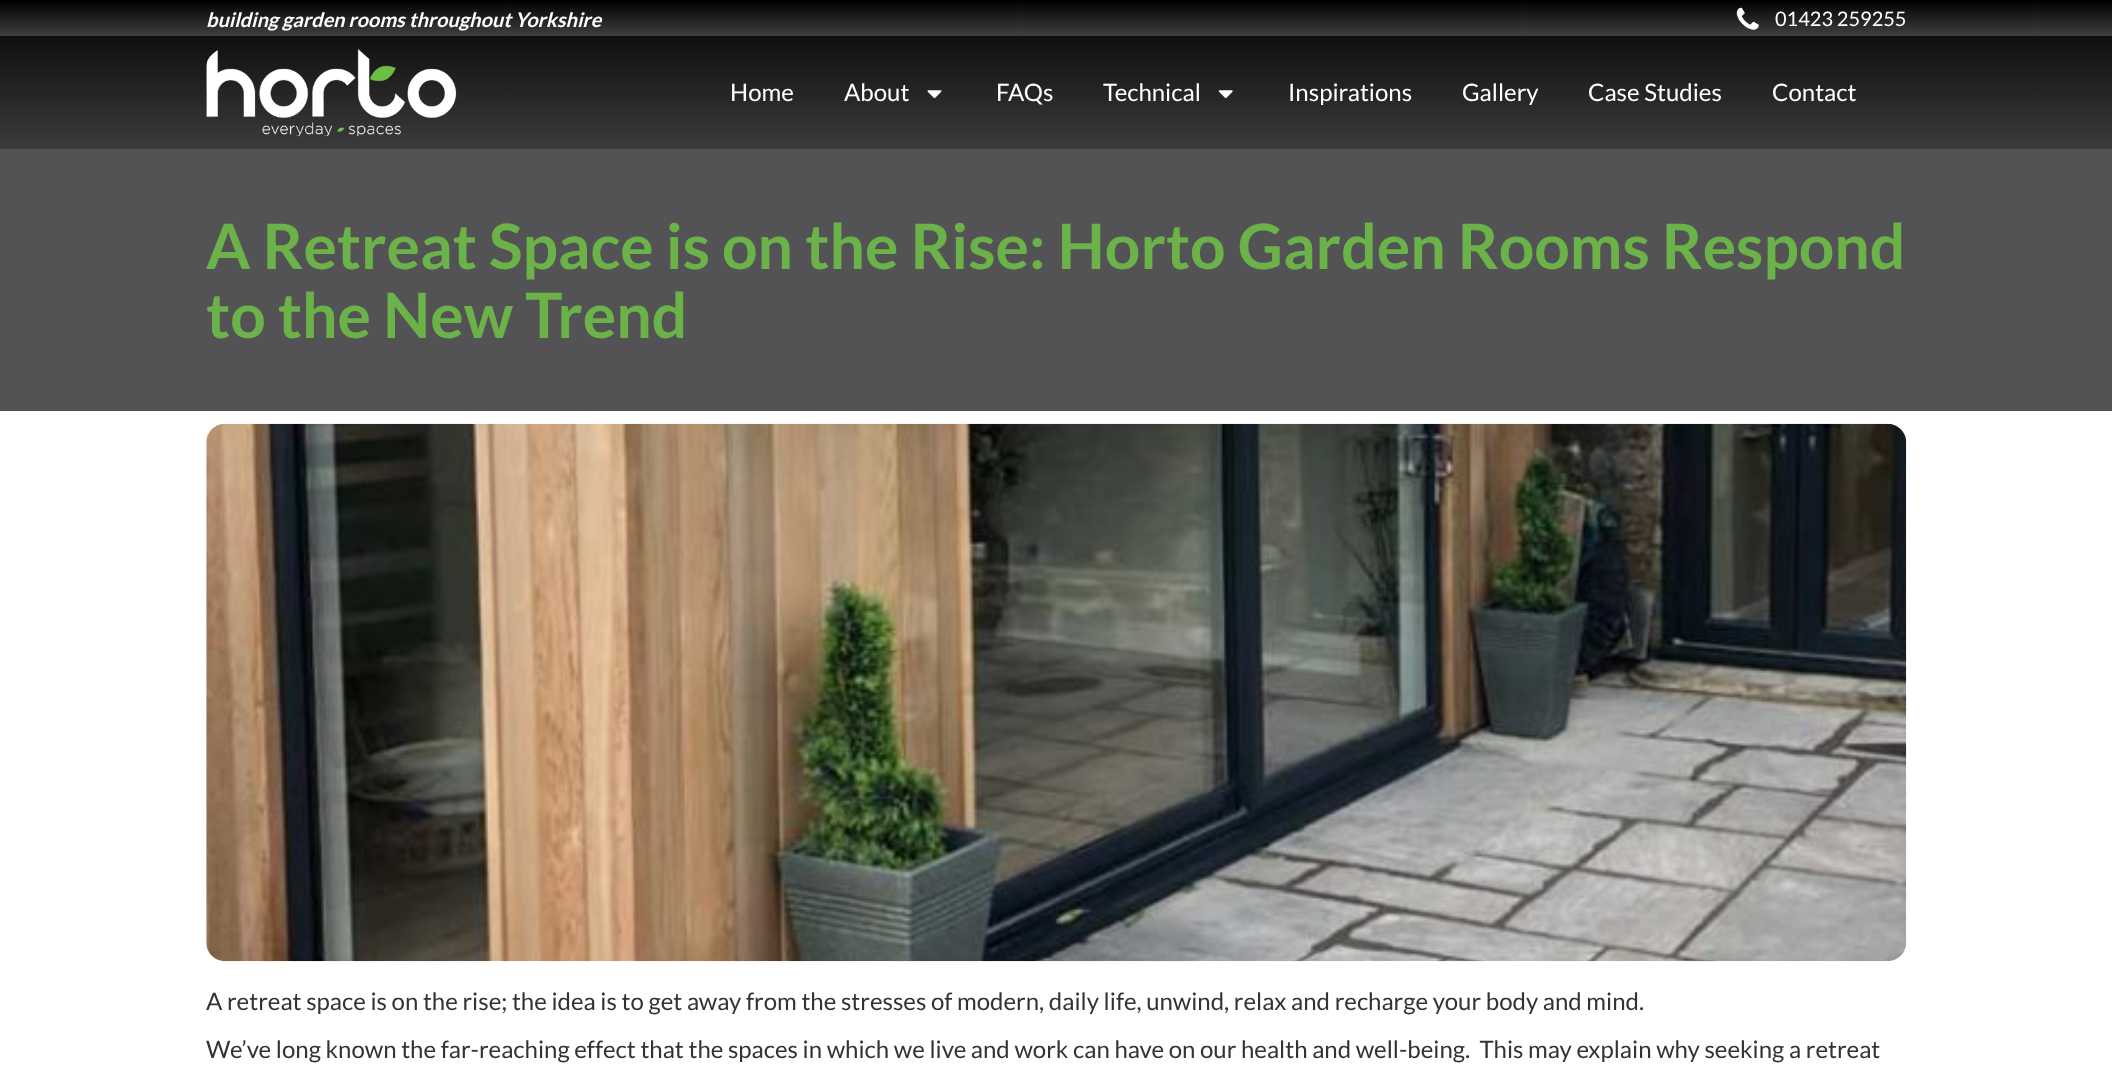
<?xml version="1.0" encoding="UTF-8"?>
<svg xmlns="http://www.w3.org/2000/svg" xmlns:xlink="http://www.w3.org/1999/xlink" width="2112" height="1075">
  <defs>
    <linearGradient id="g1" gradientUnits="userSpaceOnUse" x1="1056" y1="0" x2="1056" y2="36"><stop offset="0" stop-color="#000000" /><stop offset="1" stop-color="#3f3f40" /></linearGradient>
    <linearGradient id="g2" gradientUnits="userSpaceOnUse" x1="1056" y1="36" x2="1056" y2="149"><stop offset="0" stop-color="#0f0f0f" /><stop offset="1" stop-color="#3b3b3b" /></linearGradient>
  </defs>
  <rect width="100%" height="100%" fill="#ffffff" />
  <rect width="2112" height="36" fill="url(#g1)" />
  <image x="1736" y="7" width="23" height="23" xlink:href="image1.png" />
  <rect y="36" width="2112" height="113" fill="url(#g2)" />
  <image x="206" y="49" width="251" height="88" xlink:href="image2.png" />
  <image x="927" y="90" width="15" height="9" xlink:href="image3.png" />
  <image x="1218" y="90" width="15" height="9" xlink:href="image4.png" />
  <rect y="149" width="2112" height="262" fill="#535355" />
  <image x="206" y="423" width="1701" height="539" xlink:href="image5.png" />
  <text x="206" y="27" style="font-family: Lato; font-size: 20px; font-weight: bold; font-style: italic; fill: #ffffff">building garden rooms throughout Yorkshire</text>
  <text x="1775" y="26" style="font-family: Lato; font-size: 20px; fill: #ffffff">01423 259255</text>
  <text x="730" y="101" style="font-family: Lato; font-size: 24px; fill: #ffffff">Home</text>
  <text x="844" y="101" style="font-family: Lato; font-size: 24px; fill: #ffffff">About</text>
  <text x="996" y="101" style="font-family: Lato; font-size: 24px; fill: #ffffff">FAQs</text>
  <text x="1103" y="101" style="font-family: Lato; font-size: 24px; fill: #ffffff">Technical</text>
  <text x="1288" y="101" style="font-family: Lato; font-size: 24px; fill: #ffffff">Inspirations</text>
  <text x="1462" y="101" style="font-family: Lato; font-size: 24px; fill: #ffffff">Gallery</text>
  <text x="1588" y="101" style="font-family: Lato; font-size: 24px; fill: #ffffff">Case Studies</text>
  <text x="1772" y="101" style="font-family: Lato; font-size: 24px; fill: #ffffff">Contact</text>
  <text x="206" y="269" style="font-family: Lato; font-size: 62.5px; font-weight: bold; fill: #6bb249">A Retreat Space is on the Rise: Horto Garden Rooms Respond</text>
  <text x="206" y="338" style="font-family: Lato; font-size: 62.5px; font-weight: bold; fill: #6bb249">to the New Trend</text>
  <text x="206" y="1010" style="font-family: Lato; font-size: 24px; fill: #333333">A retreat space is on the rise; the idea is to get away from the stresses of modern, daily life, unwind, relax and recharge your body and mind.</text>
  <text x="206" y="1058" style="font-family: Lato; font-size: 24px; fill: #333333" xml:space="preserve">We’ve long known the far-reaching effect that the spaces in which we live and work can have on our health and well-being.  This may explain why seeking a retreat</text>
</svg>
